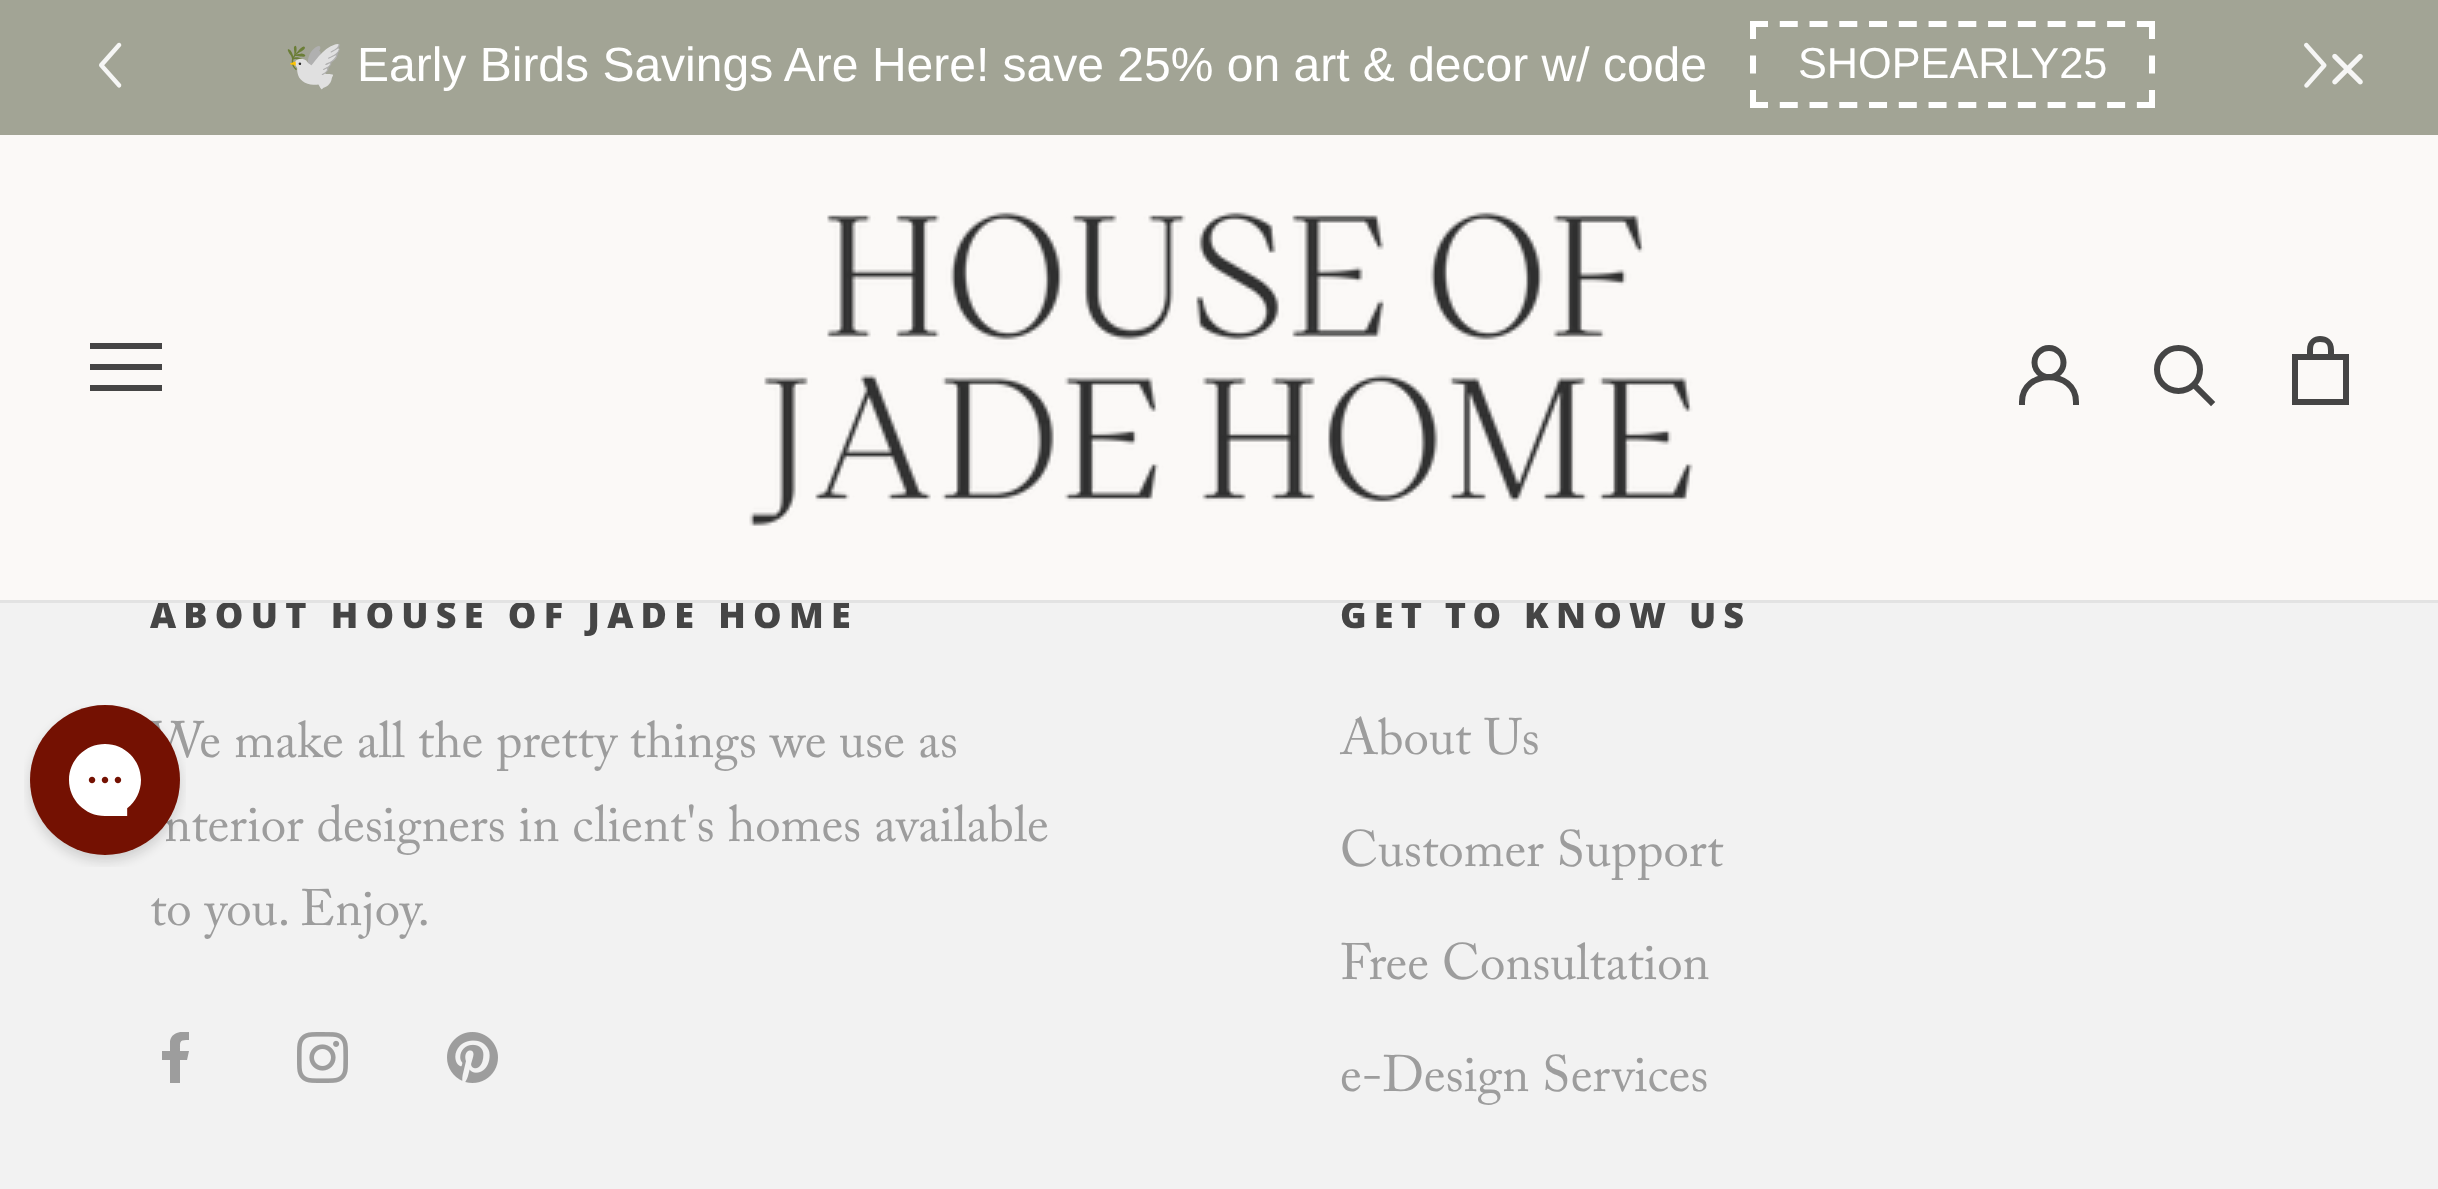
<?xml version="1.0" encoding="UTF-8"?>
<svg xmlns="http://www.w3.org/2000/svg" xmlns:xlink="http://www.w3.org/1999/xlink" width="2438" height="1189">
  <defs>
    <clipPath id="clip1"><rect x="150" y="1032" width="51" height="51" /></clipPath>
  </defs>
  <rect width="100%" height="100%" fill="#f2f2f2" />
  <rect width="2438" height="135" fill="#a2a495" />
  <image x="99" y="42" width="23" height="46" xlink:href="image2.png" />
  <path d="M 1750 24 h 405" fill="none" stroke="#ffffff" stroke-width="6" stroke-dasharray="18 11.76" />
  <path d="M 2152 21 v 18 m 0 16.5 v 18 m 0 16.5 v 18" fill="none" stroke="#ffffff" stroke-width="6" />
  <path d="M 1750 105 h 405" fill="none" stroke="#ffffff" stroke-width="6" stroke-dasharray="18 11.76" />
  <path d="M 1753 21 v 18 m 0 16.5 v 18 m 0 16.5 v 18" fill="none" stroke="#ffffff" stroke-width="6" />
  <image x="2304" y="42" width="23" height="46" xlink:href="image3.png" />
  <image x="2332" y="53" width="31" height="32" xlink:href="image4.png" />
  <rect y="135" width="2438" height="465" fill="#fbf9f7" />
  <path d="M 90 391 v -6 h 72 v 6 z m 0 -27 h 72 v 6 h -72 z m 0 -21 h 72 v 6 h -72 z" fill="#454545" />
  <image x="749" y="212" width="944" height="314" xlink:href="image5.png" />
  <path d="M 2022 402 c 0 -33 54 -33 54 0" fill="none" stroke="#454545" stroke-width="6" stroke-linecap="square" />
  <circle cx="2049" cy="362.5" r="14.5" fill="none" stroke="#454545" stroke-width="6" />
  <path d="M 2211 402 l -17 -17" fill="none" stroke="#454545" stroke-width="6" stroke-linecap="square" />
  <circle cx="2178.5" cy="369.5" r="21.5" fill="none" stroke="#454545" stroke-width="6" />
  <path d="M 2292 405 v -51 h 57 v 51 z m 51 -45 h -45 v 39 h 45 z m -15 -9 c 0 -6 -1 -9 -8 -9 c -6 0 -7 3 -7 9 v 3 h -6 v -4 c 0 -10 7 -14 13 -14 c 7 0 14 4 14 14 v 4 h -6 z" fill="#454545" />
  <g clip-path="url(#clip1)">
    <path d="M 180 1083 v -23 h 7 l 2 -9 h -9 c 0 -10 -1 -11 9 -11 v -8 c -8 -1 -17 0 -19 9 v 10 h -8 v 9 h 8 v 23 z" fill="#9d9d9d" />
  </g>
  <image x="297" y="1032" width="51" height="51" xlink:href="image6.png" />
  <image x="447" y="1032" width="51" height="51" xlink:href="image7.png" />
  <text x="284" y="81" style="font-family: Noto Color Emoji; font-size: 48px; fill: #ffffff">🕊️</text>
  <text x="357" y="81" style="font-family: Liberation Sans; font-size: 48px; fill: #ffffff">Early Birds Savings Are Here! save 25% on art &amp; decor w/ code</text>
  <text x="1798" y="78" style="font-family: Liberation Sans; font-size: 43.25px; fill: #ffffff">SHOPEARLY25</text>
  <text x="150" y="628" word-spacing="0.5" style="font-family: Noto Sans; font-size: 36px; font-weight: 900; letter-spacing: 7.2px; fill: #454545">ABOUT HOUSE OF JADE HOME</text>
  <text x="150" y="757" style="font-family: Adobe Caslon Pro; font-size: 51px; fill: #9d9d9d">We make all the pretty things we use as</text>
  <text x="164" y="841" style="font-family: Adobe Caslon Pro; font-size: 51px; fill: #9d9d9d">nterior designers in client's homes available</text>
  <image x="24" y="705" width="162" height="162" xlink:href="image1.png" />
  <text x="150" y="925" style="font-family: Adobe Caslon Pro; font-size: 51px; fill: #9d9d9d">to you. Enjoy.</text>
  <text x="1340" y="628" word-spacing="-1" style="font-family: Noto Sans; font-size: 36px; font-weight: 900; letter-spacing: 7.2px; fill: #454545">GET TO KNOW US</text>
  <rect y="600" width="2438" height="3" fill="#e3e3e3" />
  <text x="1340" y="754" style="font-family: Adobe Caslon Pro; font-size: 51px; fill: #9d9d9d">About Us</text>
  <text x="1340" y="866" style="font-family: Adobe Caslon Pro; font-size: 51px; fill: #9d9d9d">Customer Support</text>
  <text x="1340" y="979" style="font-family: Adobe Caslon Pro; font-size: 51px; fill: #9d9d9d">Free Consultation</text>
  <text x="1340" y="1091" style="font-family: Adobe Caslon Pro; font-size: 51px; fill: #9d9d9d">e-Design Services</text>
</svg>
